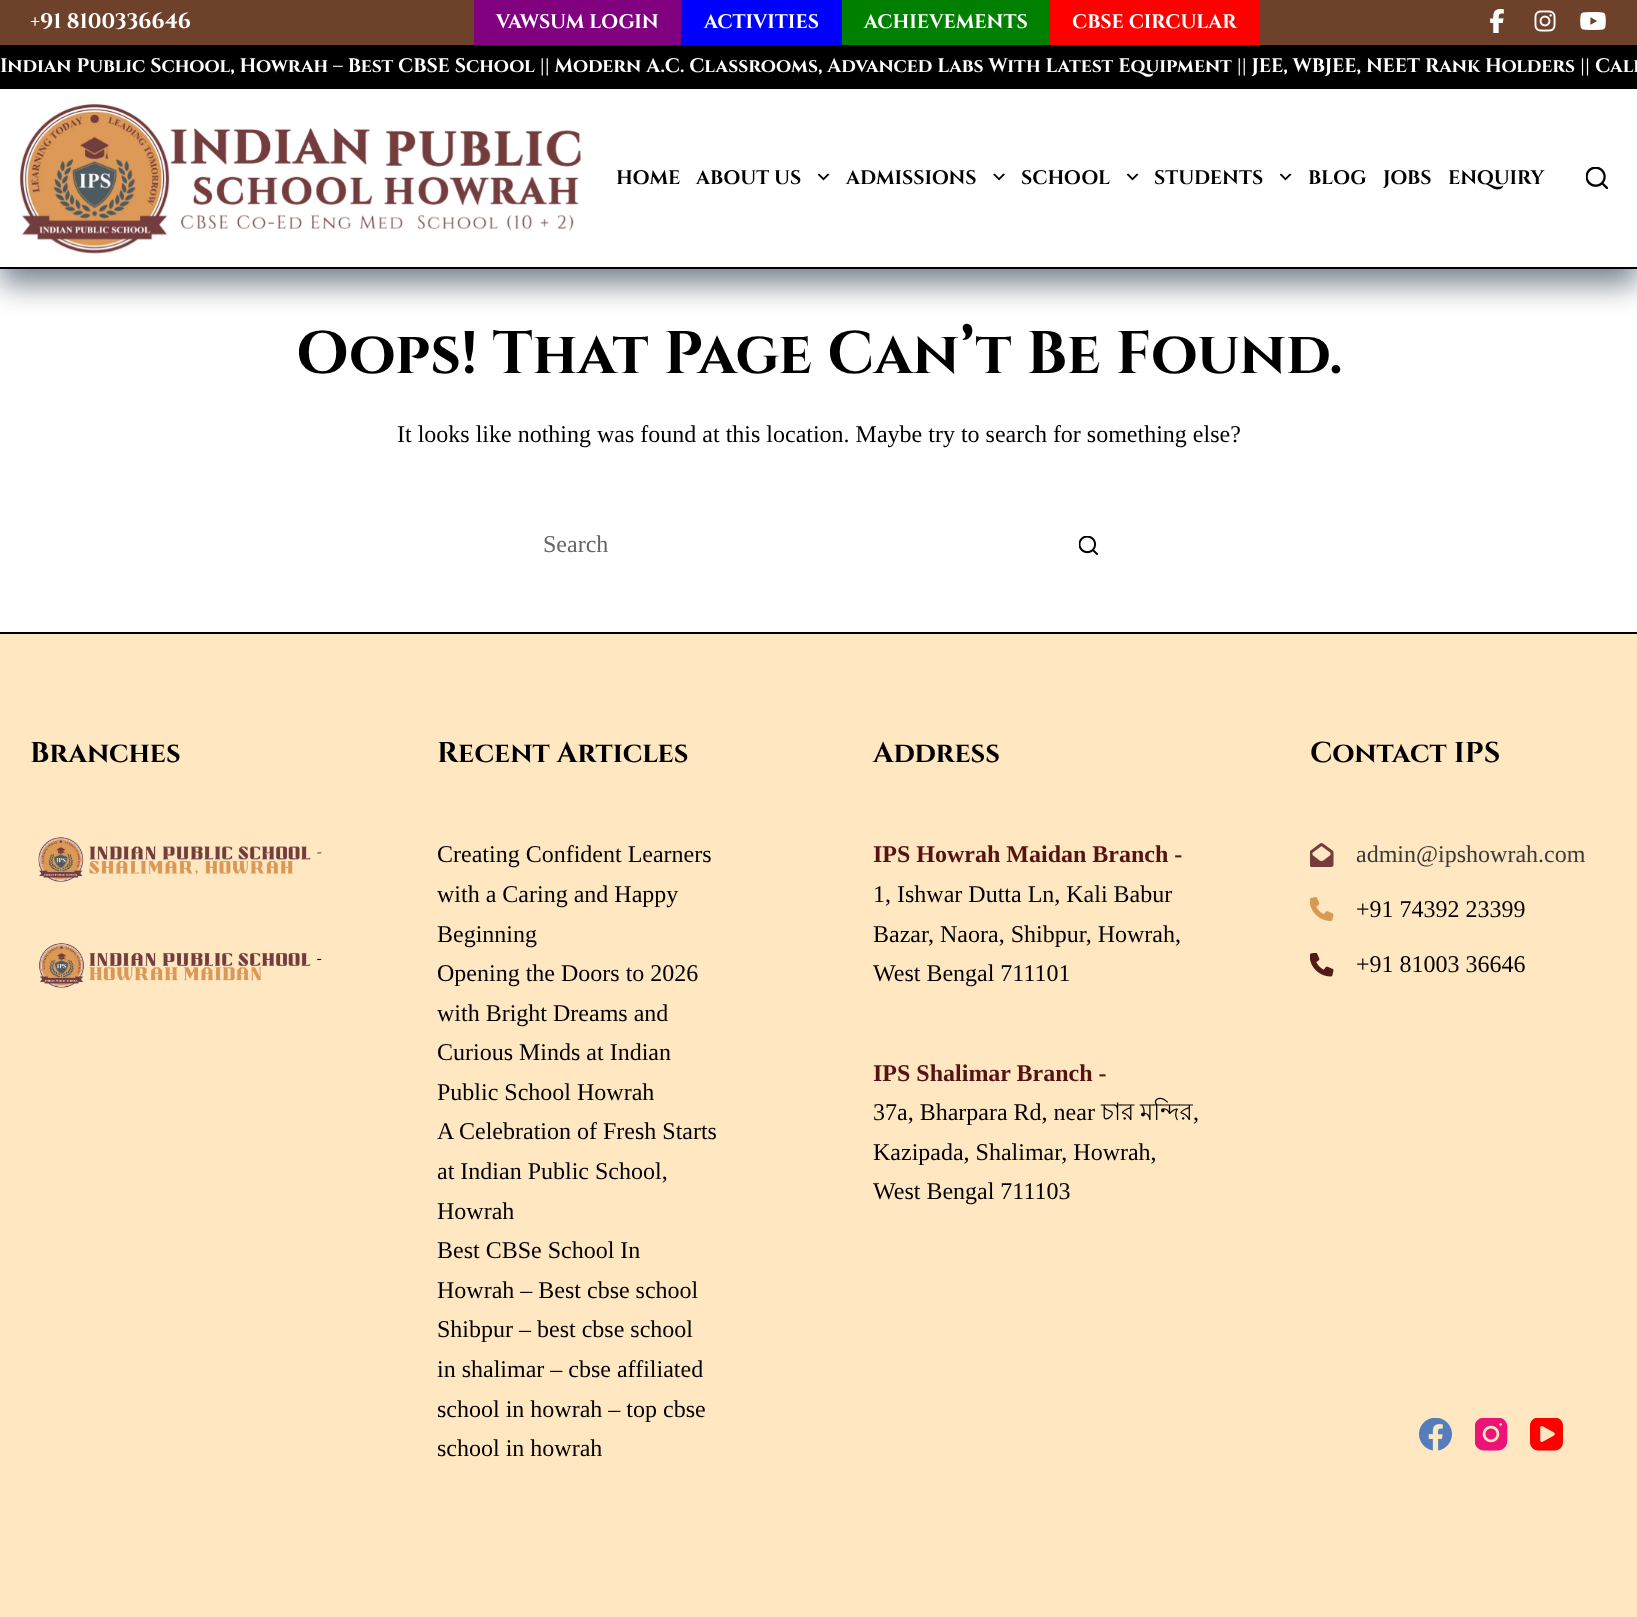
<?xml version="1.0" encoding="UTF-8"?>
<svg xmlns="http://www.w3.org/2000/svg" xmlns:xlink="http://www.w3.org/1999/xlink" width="1637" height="1617">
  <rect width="100%" height="100%" fill="#ffffff" />
  <rect width="1637" height="45" fill="#6d412a" />
  <rect x="474" width="207" height="45" fill="#800080" />
  <rect x="681" width="161" height="45" fill="#0000ff" />
  <rect x="842" width="208" height="45" fill="#008000" />
  <rect x="1050" width="210" height="45" fill="#ff0000" />
  <image x="1490" y="9" width="14" height="24" xlink:href="image1.png" />
  <image x="1534" y="10" width="22" height="22" xlink:href="image2.png" />
  <image x="1580" y="12" width="26" height="18" xlink:href="image3.png" />
  <rect y="104" width="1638" height="180" fill="#2b3d4f" fill-opacity="0.65" filter="blur(15px)" />
  <rect y="45" width="1637" height="44" fill="#000000" />
  <rect y="89" width="1637" height="178" fill="#ffffff" />
  <rect y="267" width="1637" height="2" fill="#000000" />
  <image x="19" y="103" width="562" height="151" xlink:href="image4.png" />
  <image x="818" y="173" width="12" height="8" xlink:href="image5.png" />
  <image x="993" y="173" width="12" height="8" xlink:href="image6.png" />
  <image x="1127" y="173" width="12" height="8" xlink:href="image5.png" />
  <image x="1280" y="173" width="12" height="8" xlink:href="image5.png" />
  <image x="1586" y="167" width="22" height="22" xlink:href="image7.png" />
  <image x="1079" y="536" width="19" height="19" xlink:href="image8.png" />
  <rect y="634" width="1637" height="983" fill="#ffe7c1" />
  <rect y="632" width="1637" height="2" fill="#000000" />
  <image x="38" y="837" width="284" height="45" xlink:href="image9.png" />
  <image x="39" y="943" width="283" height="45" xlink:href="image10.png" />
  <image x="1310" y="843" width="24" height="24" xlink:href="image11.png" />
  <image x="1310" y="897" width="24" height="24" xlink:href="image12.png" />
  <image x="1310" y="953" width="24" height="24" xlink:href="image13.png" />
  <image x="1419" y="1418" width="33" height="33" xlink:href="image14.png" />
  <image x="1475" y="1418" width="33" height="33" xlink:href="image15.png" />
  <image x="1530" y="1418" width="33" height="33" xlink:href="image16.png" />
  <text x="30" y="28" style="font-family: Cinzel; font-size: 21px; font-weight: bold; fill: #ffffff">+91 8100336646</text>
  <text x="496" y="28" style="font-family: Cinzel; font-size: 19.5px; font-weight: bold; fill: #ffffff">VAWSUM LOGIN</text>
  <text x="704" y="28" style="font-family: Cinzel; font-size: 19.5px; font-weight: bold; fill: #ffffff">ACTIVITIES</text>
  <text x="864" y="28" style="font-family: Cinzel; font-size: 19.5px; font-weight: bold; fill: #ffffff">ACHIEVEMENTS</text>
  <text x="1072" y="28" style="font-family: Cinzel; font-size: 19.5px; font-weight: bold; fill: #ffffff">CBSE CIRCULAR</text>
  <text x="0" y="72" style="font-family: Cinzel; font-size: 19.5px; font-weight: bold; fill: #ffffff">Indian Public School, Howrah – Best CBSE School || Modern A.C. Classrooms, Advanced Labs With Latest Equipment || JEE, WBJEE, NEET Rank Holders || Call</text>
  <text x="616" y="184" style="font-family: Cinzel; font-size: 19.5px; font-weight: bold; fill: #000000">HOME</text>
  <text x="696" y="184" style="font-family: Cinzel; font-size: 19.5px; font-weight: bold; fill: #000000">ABOUT US</text>
  <text x="846" y="184" style="font-family: Cinzel; font-size: 19.5px; font-weight: bold; fill: #000000">ADMISSIONS</text>
  <text x="1021" y="184" style="font-family: Cinzel; font-size: 19.5px; font-weight: bold; fill: #000000">SCHOOL</text>
  <text x="1154" y="184" style="font-family: Cinzel; font-size: 19.5px; font-weight: bold; fill: #000000">STUDENTS</text>
  <text x="1308" y="184" style="font-family: Cinzel; font-size: 19.5px; font-weight: bold; fill: #000000">BLOG</text>
  <text x="1383" y="184" style="font-family: Cinzel; font-size: 19.5px; font-weight: bold; fill: #000000">JOBS</text>
  <text x="1448" y="184" style="font-family: Cinzel; font-size: 19.5px; font-weight: bold; fill: #000000">ENQUIRY</text>
  <text x="296" y="373" style="font-family: Cinzel; font-size: 60px; font-weight: bold; fill: #000000">Oops! That Page Can’t Be Found.</text>
  <text x="397" y="442" style="font-family: Liberation Serif; font-size: 24px; fill: #000000">It looks like nothing was found at this location. Maybe try to search for something else?</text>
  <text x="543" y="552" style="font-family: Liberation Serif; font-size: 24px; fill: #666666">Search</text>
  <text x="30" y="762" style="font-family: Cinzel; font-size: 28.6px; font-weight: bold; fill: #000000">Branches</text>
  <text x="437" y="762" style="font-family: Cinzel; font-size: 28.6px; font-weight: bold; fill: #000000">Recent Articles</text>
  <text x="437" y="862" style="font-family: Liberation Serif; font-size: 24px; fill: #000000">Creating Confident Learners</text>
  <text x="437" y="902" style="font-family: Liberation Serif; font-size: 24px; fill: #000000">with a Caring and Happy</text>
  <text x="437" y="942" style="font-family: Liberation Serif; font-size: 24px; fill: #000000">Beginning</text>
  <text x="437" y="981" style="font-family: Liberation Serif; font-size: 24px; fill: #000000">Opening the Doors to 2026</text>
  <text x="437" y="1021" style="font-family: Liberation Serif; font-size: 24px; fill: #000000">with Bright Dreams and</text>
  <text x="437" y="1060" style="font-family: Liberation Serif; font-size: 24px; fill: #000000">Curious Minds at Indian</text>
  <text x="437" y="1100" style="font-family: Liberation Serif; font-size: 24px; fill: #000000">Public School Howrah</text>
  <text x="437" y="1139" style="font-family: Liberation Serif; font-size: 24px; fill: #000000">A Celebration of Fresh Starts</text>
  <text x="437" y="1179" style="font-family: Liberation Serif; font-size: 24px; fill: #000000">at Indian Public School,</text>
  <text x="437" y="1219" style="font-family: Liberation Serif; font-size: 24px; fill: #000000">Howrah</text>
  <text x="437" y="1258" style="font-family: Liberation Serif; font-size: 24px; fill: #000000">Best CBSe School In</text>
  <text x="437" y="1298" style="font-family: Liberation Serif; font-size: 24px; fill: #000000">Howrah – Best cbse school</text>
  <text x="437" y="1337" style="font-family: Liberation Serif; font-size: 24px; fill: #000000">Shibpur – best cbse school</text>
  <text x="437" y="1377" style="font-family: Liberation Serif; font-size: 24px; fill: #000000">in shalimar – cbse affiliated</text>
  <text x="437" y="1417" style="font-family: Liberation Serif; font-size: 24px; fill: #000000">school in howrah – top cbse</text>
  <text x="437" y="1456" style="font-family: Liberation Serif; font-size: 24px; fill: #000000">school in howrah</text>
  <text x="873" y="762" style="font-family: Cinzel; font-size: 28.6px; font-weight: bold; fill: #000000">Address</text>
  <text x="873" y="862" style="font-family: Liberation Serif; font-size: 24px; font-weight: bold; fill: #561313">IPS Howrah Maidan Branch -</text>
  <text x="873" y="902" style="font-family: Liberation Serif; font-size: 24px; fill: #000000">1, Ishwar Dutta Ln, Kali Babur</text>
  <text x="873" y="942" style="font-family: Liberation Serif; font-size: 24px; fill: #000000">Bazar, Naora, Shibpur, Howrah,</text>
  <text x="873" y="981" style="font-family: Liberation Serif; font-size: 24px; fill: #000000">West Bengal 711101</text>
  <text x="873" y="1081" style="font-family: Liberation Serif; font-size: 24px; font-weight: bold; fill: #561313">IPS Shalimar Branch -</text>
  <text x="873" y="1120" style="font-family: Liberation Serif; font-size: 24px; fill: #000000">37a, Bharpara Rd, near</text>
  <text x="1101" y="1120" style="font-family: Lohit Bengali; font-size: 24px; fill: #000000">চার</text>
  <text x="1140" y="1120" style="font-family: Lohit Bengali; font-size: 24px; fill: #000000">মন্দির</text>
  <text x="1193" y="1120" style="font-family: Liberation Serif; font-size: 24px; fill: #000000">,</text>
  <text x="873" y="1160" style="font-family: Liberation Serif; font-size: 24px; fill: #000000">Kazipada, Shalimar, Howrah,</text>
  <text x="873" y="1199" style="font-family: Liberation Serif; font-size: 24px; fill: #000000">West Bengal 711103</text>
  <text x="1310" y="762" style="font-family: Cinzel; font-size: 28.6px; font-weight: bold; fill: #000000">Contact IPS</text>
  <text x="1356" y="862" style="font-family: Liberation Serif; font-size: 24px; fill: #3a3a3a">admin@ipshowrah.com</text>
  <text x="1356" y="917" style="font-family: Liberation Serif; font-size: 24px; fill: #000000">+91 74392 23399</text>
  <text x="1356" y="972" style="font-family: Liberation Serif; font-size: 24px; fill: #000000">+91 81003 36646</text>
</svg>
